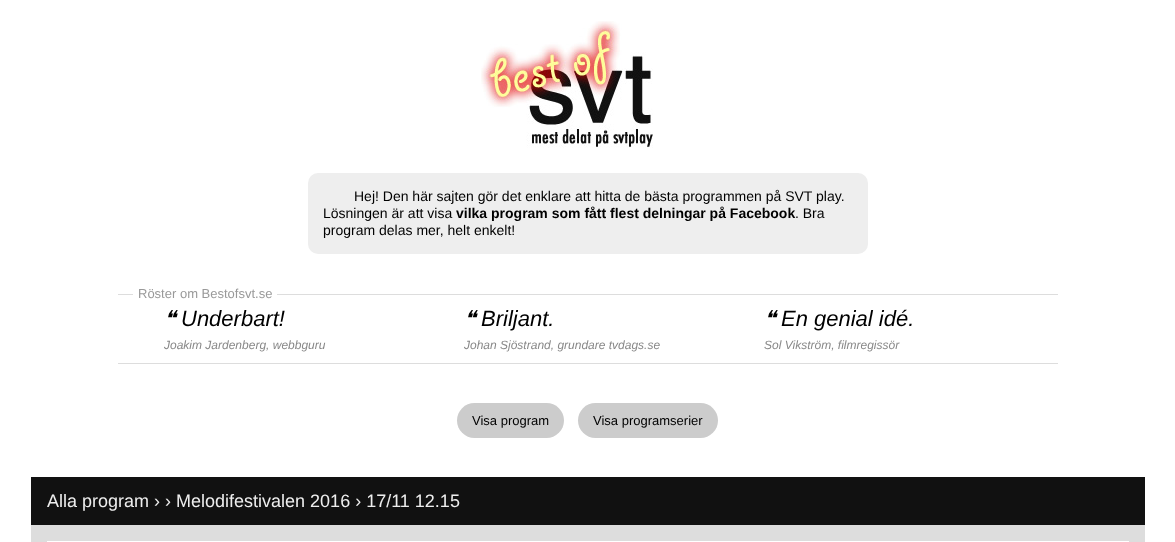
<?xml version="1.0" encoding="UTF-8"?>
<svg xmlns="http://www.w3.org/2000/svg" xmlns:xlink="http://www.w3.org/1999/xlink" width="1175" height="542">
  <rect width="100%" height="100%" fill="#ffffff" />
  <image x="481" y="21" width="172" height="127" xlink:href="image1.png" />
  <rect x="308" y="173" width="560" height="81" rx="10" fill="#eeeeee" />
  <rect x="118" y="294" width="940" height="1" fill="#dddddd" />
  <rect x="118" y="363" width="940" height="1" fill="#dddddd" />
  <rect x="133" y="294" width="144" height="1" fill="#ffffff" />
  <rect x="457" y="403" width="107" height="35" rx="17.5" fill="#cccccc" />
  <rect x="578" y="403" width="140" height="35" rx="17.5" fill="#cccccc" />
  <rect x="31" y="477" width="1114" height="48" fill="#111111" />
  <rect x="31" y="525" width="1114" height="17" fill="#dddddd" />
  <rect x="47" y="541" width="1082" height="1" fill="#ffffff" />
  <text x="354" y="201" style="font-family: Liberation Sans; font-size: 14px; fill: #000000">Hej! Den här sajten gör det enklare att hitta de bästa programmen på SVT play.</text>
  <text x="323" y="218" style="font-family: Liberation Sans; font-size: 14px; fill: #000000">Lösningen är att visa</text>
  <text x="456" y="218" style="font-family: Liberation Sans; font-size: 14px; font-weight: bold; fill: #000000">vilka program som fått flest delningar på Facebook</text>
  <text x="795" y="218" style="font-family: Liberation Sans; font-size: 14px; fill: #000000">. Bra</text>
  <text x="323" y="235" style="font-family: Liberation Sans; font-size: 14px; fill: #000000">program delas mer, helt enkelt!</text>
  <text x="138" y="298" style="font-family: Liberation Sans; font-size: 13px; fill: #999999">Röster om Bestofsvt.se</text>
  <text x="164" y="326" style="font-family: DejaVu Sans; font-size: 22px; font-style: italic; fill: #000000">❝</text>
  <text x="181" y="326" style="font-family: Liberation Sans; font-size: 22px; font-style: italic; fill: #000000">Underbart!</text>
  <text x="164" y="349" style="font-family: Liberation Sans; font-size: 12px; font-style: italic; fill: #888888">Joakim Jardenberg, webbguru</text>
  <text x="464" y="326" style="font-family: DejaVu Sans; font-size: 22px; font-style: italic; fill: #000000">❝</text>
  <text x="481" y="326" style="font-family: Liberation Sans; font-size: 22px; font-style: italic; fill: #000000">Briljant.</text>
  <text x="464" y="349" style="font-family: Liberation Sans; font-size: 12px; font-style: italic; fill: #888888">Johan Sjöstrand, grundare tvdags.se</text>
  <text x="764" y="326" style="font-family: DejaVu Sans; font-size: 22px; font-style: italic; fill: #000000">❝</text>
  <text x="781" y="326" style="font-family: Liberation Sans; font-size: 22px; font-style: italic; fill: #000000">En genial idé.</text>
  <text x="764" y="349" style="font-family: Liberation Sans; font-size: 12px; font-style: italic; fill: #888888">Sol Vikström, filmregissör</text>
  <text x="472" y="425" style="font-family: Liberation Sans; font-size: 13px; fill: #000000">Visa program</text>
  <text x="593" y="425" style="font-family: Liberation Sans; font-size: 13px; fill: #000000">Visa programserier</text>
  <text x="47" y="507" style="font-family: Liberation Sans; font-size: 18px; fill: #eeeeee">Alla program › › Melodifestivalen 2016 › 17/11 12.15</text>
</svg>
